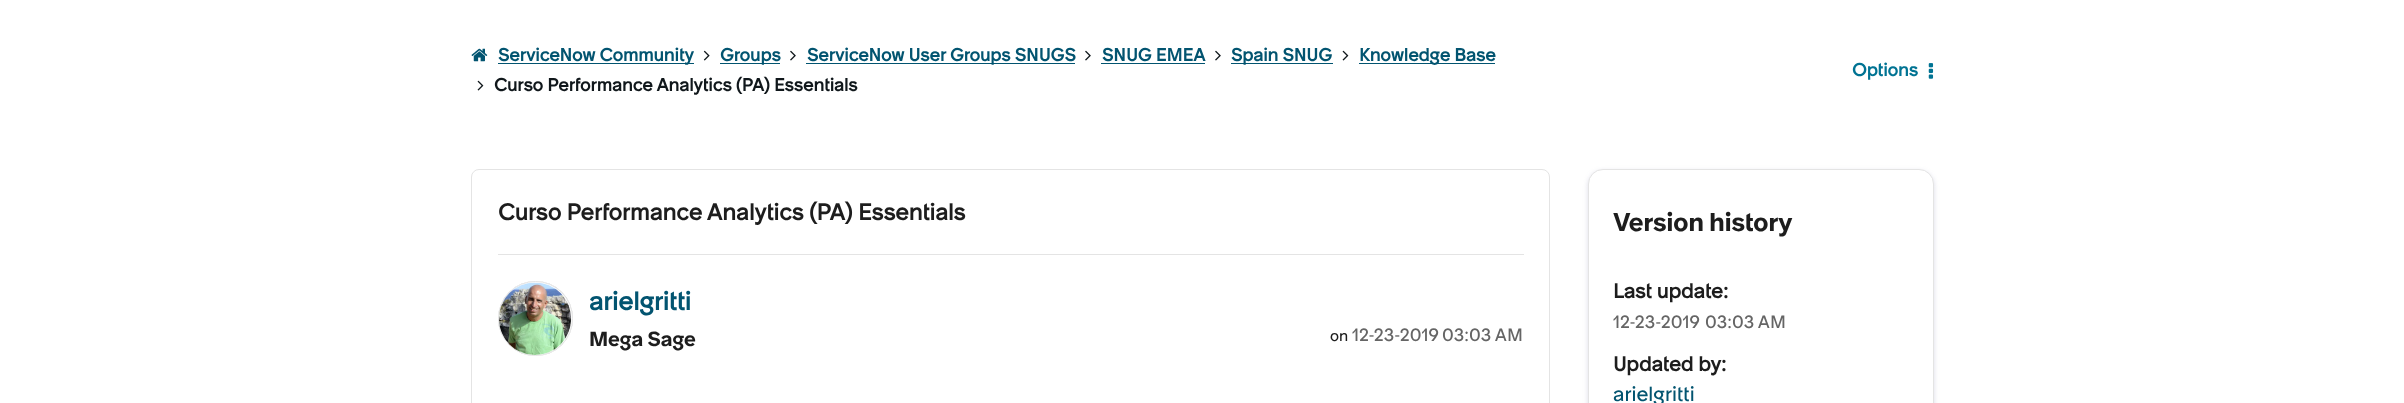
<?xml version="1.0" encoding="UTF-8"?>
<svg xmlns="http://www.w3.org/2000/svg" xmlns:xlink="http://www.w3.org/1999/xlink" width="2404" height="403">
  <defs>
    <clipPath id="clip1"><path d="M 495 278 h 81 v 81 h -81 z m 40.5 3 c 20.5 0 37.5 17 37.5 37.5 c 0 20.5 -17 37.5 -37.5 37.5 c -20.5 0 -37.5 -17 -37.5 -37.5 c 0 -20.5 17 -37.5 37.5 -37.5 z" clip-rule="evenodd" /></clipPath>
  </defs>
  <rect width="100%" height="100%" fill="#ffffff" />
  <image x="471" y="48" width="17" height="14" xlink:href="image1.png" />
  <rect x="498" y="63" width="196" height="1" fill="#025470" />
  <image x="703" y="50" width="7" height="11" xlink:href="image2.png" />
  <rect x="720" y="63" width="60" height="1" fill="#025470" />
  <image x="790" y="50" width="6" height="11" xlink:href="image3.png" />
  <rect x="806" y="63" width="269" height="1" fill="#025470" />
  <image x="1085" y="50" width="6" height="11" xlink:href="image3.png" />
  <rect x="1101" y="63" width="104" height="1" fill="#025470" />
  <image x="1215" y="50" width="6" height="11" xlink:href="image3.png" />
  <rect x="1231" y="63" width="102" height="1" fill="#025470" />
  <image x="1342" y="50" width="7" height="11" xlink:href="image4.png" />
  <rect x="1359" y="63" width="136" height="1" fill="#025470" />
  <image x="477" y="80" width="7" height="11" xlink:href="image4.png" />
  <image x="1928" y="63" width="6" height="16" xlink:href="image5.png" />
  <rect x="471.5" y="169.5" width="1078" height="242" rx="7.5" fill="none" stroke="#e4e4e4" />
  <rect x="498" y="254" width="1026" height="1" fill="#e4e4e4" />
  <g clip-path="url(#clip1)">
    <rect x="498" y="281" width="75" height="75" rx="37.5" fill="#c4c4c4" filter="blur(0.5px)" />
  </g>
  <circle cx="535.5" cy="318.5" r="37" fill="none" stroke="#e4e4e4" />
  <image x="498" y="282" width="74" height="73" xlink:href="image6.png" />
  <rect x="1588" y="171" width="346" height="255" rx="15" fill="#7171a1" fill-opacity="0.25" filter="blur(2.5px)" />
  <rect x="1588.5" y="169.5" width="345" height="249" rx="14.5" fill="#ffffff" stroke="#e4e4e4" />
  <text x="498" y="61" style="font-family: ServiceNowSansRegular; font-size: 17.5px; font-weight: bold; fill: #025470">ServiceNow Community</text>
  <text x="720" y="61" style="font-family: ServiceNowSansRegular; font-size: 17.5px; font-weight: bold; fill: #025470">Groups</text>
  <text x="807" y="61" style="font-family: ServiceNowSansRegular; font-size: 17.5px; font-weight: bold; fill: #025470">ServiceNow User Groups SNUGS</text>
  <text x="1102" y="61" style="font-family: ServiceNowSansRegular; font-size: 17.5px; font-weight: bold; fill: #025470">SNUG EMEA</text>
  <text x="1231" y="61" style="font-family: ServiceNowSansRegular; font-size: 17.5px; font-weight: bold; fill: #025470">Spain SNUG</text>
  <text x="1359" y="61" style="font-family: ServiceNowSansRegular; font-size: 17.5px; font-weight: bold; fill: #025470">Knowledge Base</text>
  <text x="494" y="91" style="font-family: ServiceNowSansRegular; font-size: 17.5px; font-weight: bold; fill: #10171b">Curso Performance Analytics (PA) Essentials</text>
  <text x="1852" y="76" style="font-family: ServiceNowSansRegular; font-size: 17.5px; font-weight: bold; fill: #007393">Options</text>
  <text x="498" y="220" style="font-family: ServiceNowSansRegular; font-size: 22.5px; font-weight: bold; fill: #1d1d1d">Curso Performance Analytics (PA) Essentials</text>
  <text x="589" y="310" style="font-family: ServiceNowSansRegular; font-size: 25px; font-weight: bold; fill: #025470">arielgritti</text>
  <text x="589" y="346" style="font-family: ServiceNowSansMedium; font-size: 20px; font-weight: 500; fill: #1d1d1d">Mega Sage</text>
  <text x="1330" y="341" style="font-family: ServiceNowSansRegular; font-size: 15px; fill: #1d1d1d">on</text>
  <text x="1352" y="341" style="font-family: ServiceNowSansRegular; font-size: 17.5px; fill: #656565">12-23-2019</text>
  <text x="1442" y="341" style="font-family: ServiceNowSansRegular; font-size: 17.5px; fill: #656565">03:03 AM</text>
  <text x="1613" y="231" style="font-family: ServiceNowSansMedium; font-size: 25px; font-weight: 500; fill: #1d1d1d">Version history</text>
  <text x="1613" y="298" style="font-family: ServiceNowSansRegular; font-size: 20px; font-weight: bold; fill: #1d1d1d">Last update:</text>
  <text x="1613" y="328" style="font-family: ServiceNowSansRegular; font-size: 17.5px; fill: #656565">12-23-2019</text>
  <text x="1705" y="328" style="font-family: ServiceNowSansRegular; font-size: 17.5px; fill: #656565">03:03 AM</text>
  <text x="1613" y="371" style="font-family: ServiceNowSansRegular; font-size: 20px; font-weight: bold; fill: #1d1d1d">Updated by:</text>
  <text x="1613" y="401" style="font-family: ServiceNowSansRegular; font-size: 20px; fill: #025470">arielgritti</text>
</svg>
